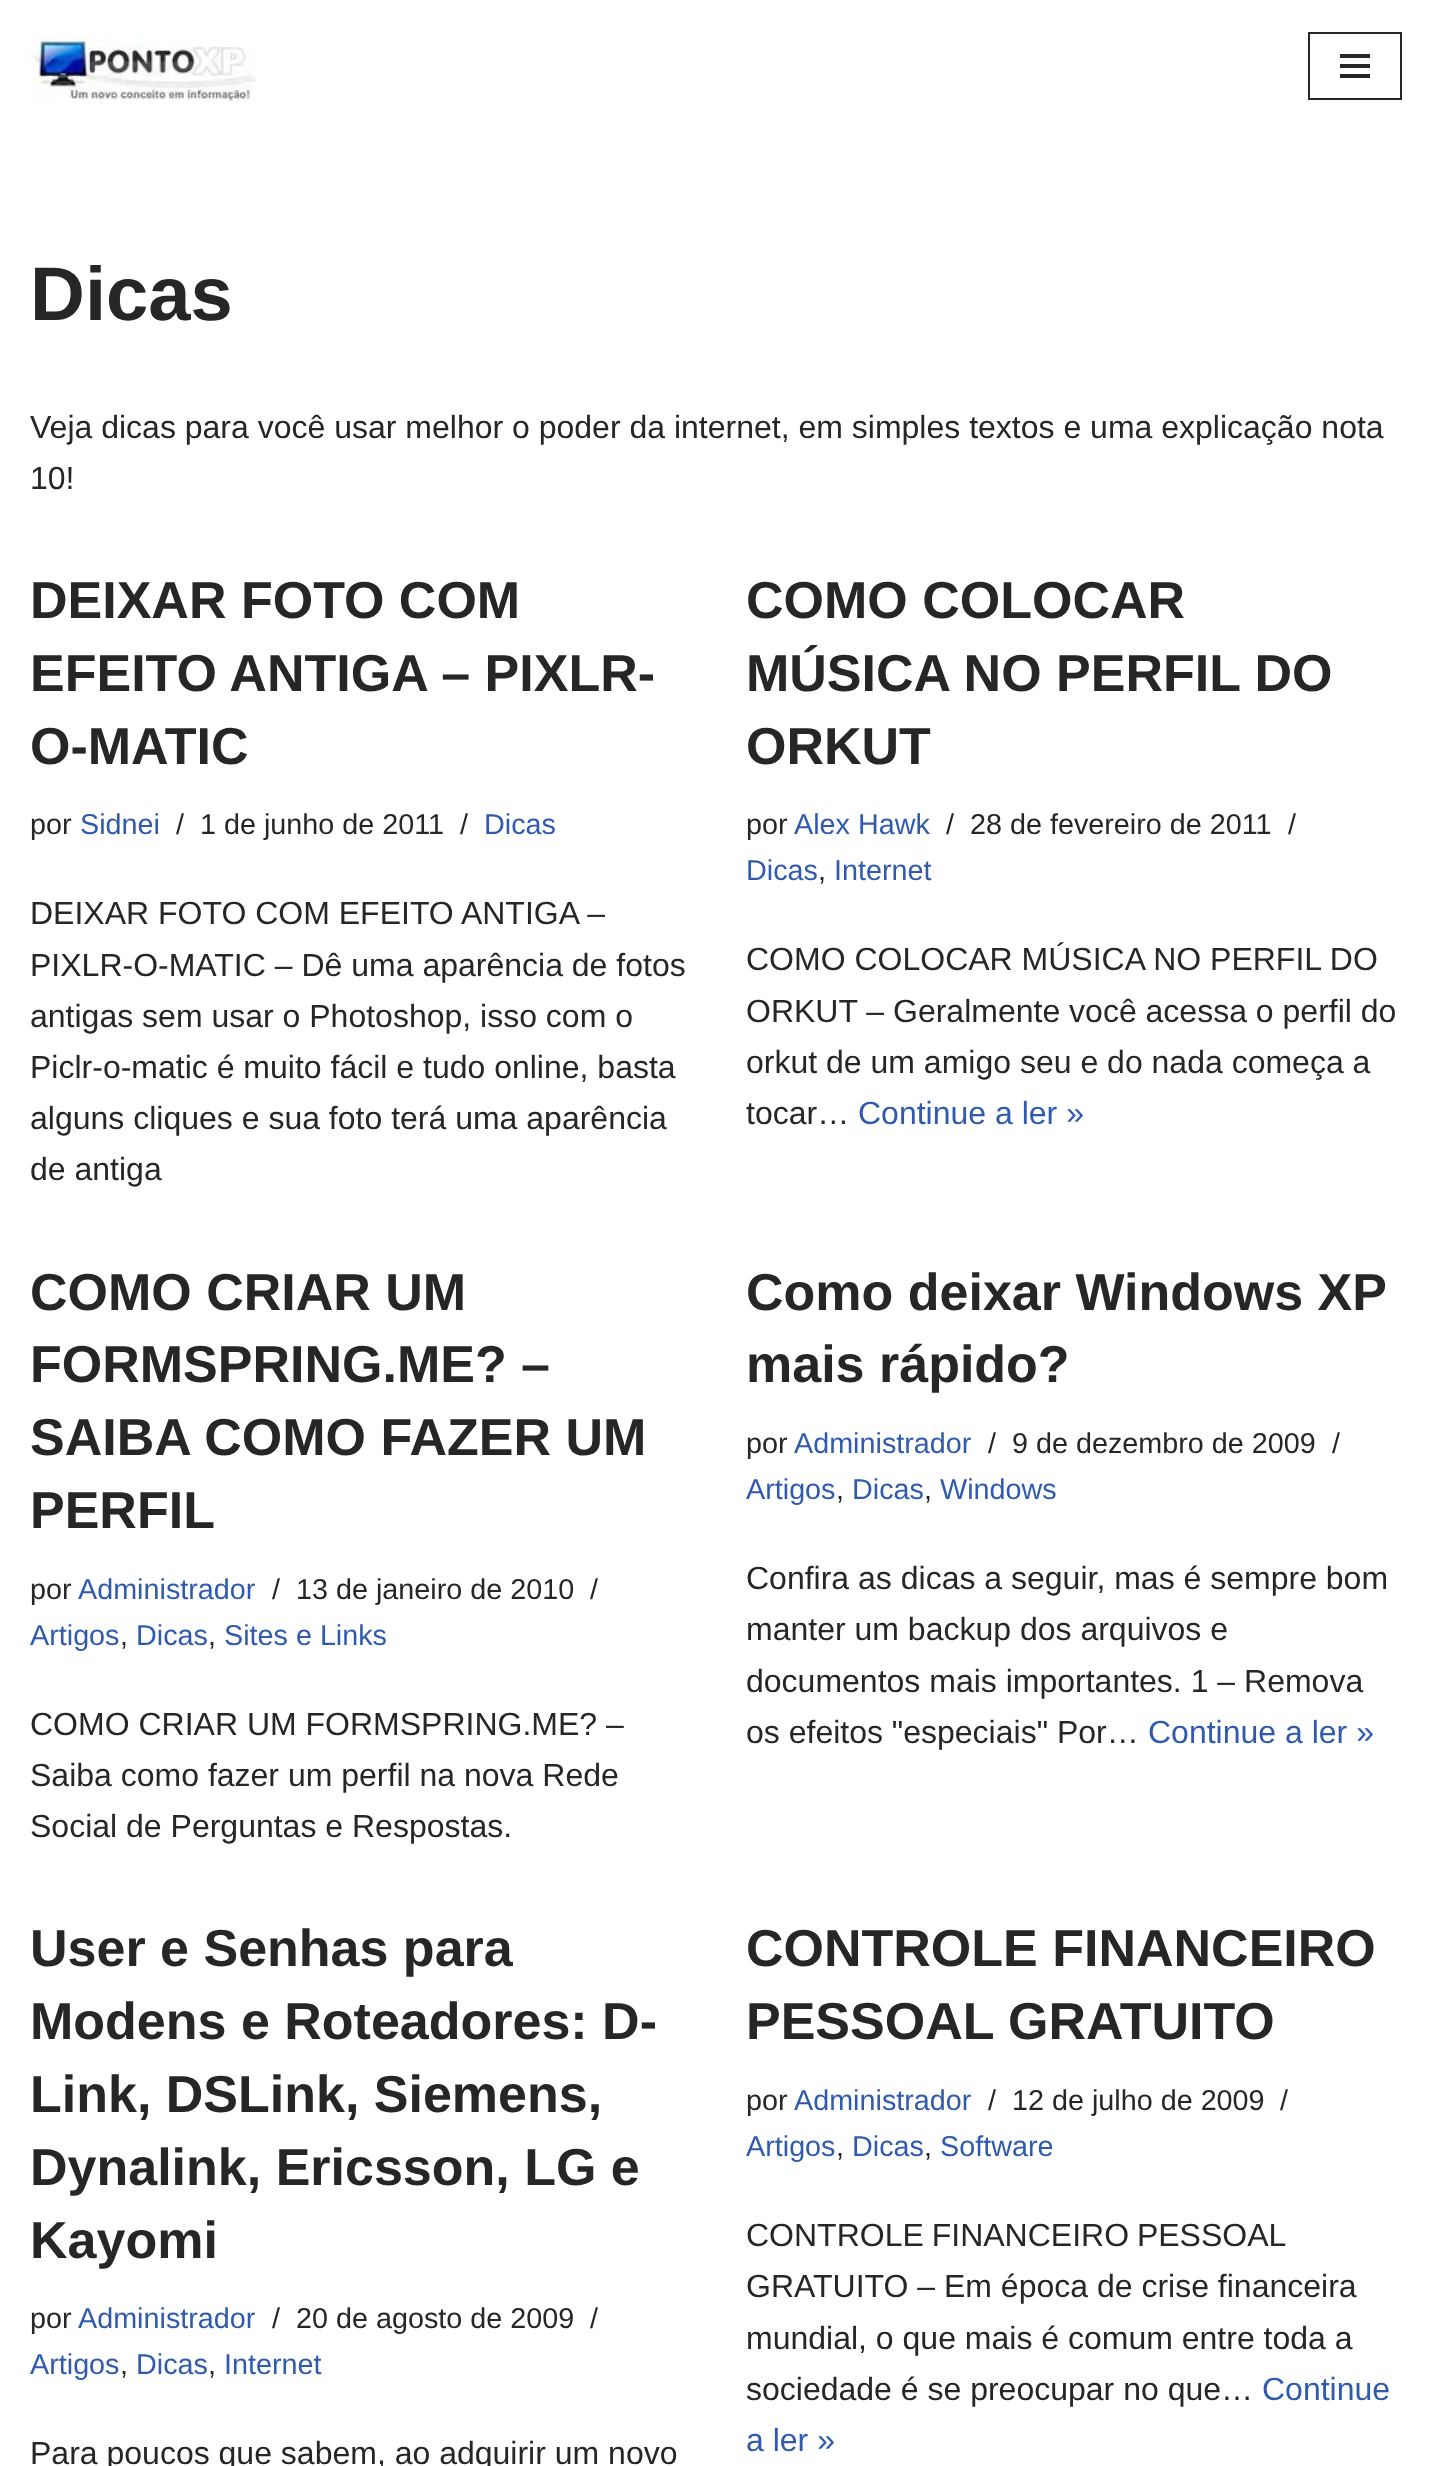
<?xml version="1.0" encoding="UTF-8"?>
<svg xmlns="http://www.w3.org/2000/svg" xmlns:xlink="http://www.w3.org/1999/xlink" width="1432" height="2466">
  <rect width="100%" height="100%" fill="#ffffff" />
  <image x="30" y="37" width="226" height="65" xlink:href="image1.png" />
  <rect x="1309" y="33" width="92" height="66" fill="none" stroke="#272626" stroke-width="2" />
  <rect x="1340" y="54" width="30" height="4" fill="#272626" />
  <rect x="1340" y="64" width="30" height="4" fill="#272626" />
  <rect x="1340" y="74" width="30" height="4" fill="#272626" />
  <text x="30" y="320" style="font-family: Liberation Sans; font-size: 76px; font-weight: bold; fill: #272626">Dicas</text>
  <text x="30" y="438" style="font-family: Liberation Sans; font-size: 32px; fill: #272626">Veja dicas para você usar melhor o poder da internet, em simples textos e uma explicação nota</text>
  <text x="30" y="489" style="font-family: Liberation Sans; font-size: 32px; fill: #272626">10!</text>
  <text x="30" y="618" style="font-family: Liberation Sans; font-size: 52px; font-weight: bold; fill: #272626">DEIXAR FOTO COM</text>
  <text x="30" y="691" style="font-family: Liberation Sans; font-size: 52px; font-weight: bold; fill: #272626">EFEITO ANTIGA – PIXLR-</text>
  <text x="30" y="764" style="font-family: Liberation Sans; font-size: 52px; font-weight: bold; fill: #272626">O-MATIC</text>
  <text x="30" y="834" style="font-family: Liberation Sans; font-size: 28.75px; fill: #272626">por</text>
  <text x="80" y="834" style="font-family: Liberation Sans; font-size: 28.75px; fill: #2f5aae">Sidnei</text>
  <text x="176" y="834" style="font-family: Liberation Sans; font-size: 28.75px; fill: #272626">/</text>
  <text x="200" y="834" style="font-family: Liberation Sans; font-size: 28.75px; fill: #272626">1 de junho de 2011</text>
  <text x="460" y="834" style="font-family: Liberation Sans; font-size: 28.75px; fill: #272626">/</text>
  <text x="484" y="834" style="font-family: Liberation Sans; font-size: 28.75px; fill: #2f5aae">Dicas</text>
  <text x="30" y="924" style="font-family: Liberation Sans; font-size: 32px; fill: #272626">DEIXAR FOTO COM EFEITO ANTIGA –</text>
  <text x="30" y="976" style="font-family: Liberation Sans; font-size: 32px; fill: #272626">PIXLR-O-MATIC – Dê uma aparência de fotos</text>
  <text x="30" y="1027" style="font-family: Liberation Sans; font-size: 32px; fill: #272626">antigas sem usar o Photoshop, isso com o</text>
  <text x="30" y="1078" style="font-family: Liberation Sans; font-size: 32px; fill: #272626">Piclr-o-matic é muito fácil e tudo online, basta</text>
  <text x="30" y="1129" style="font-family: Liberation Sans; font-size: 32px; fill: #272626">alguns cliques e sua foto terá uma aparência</text>
  <text x="30" y="1180" style="font-family: Liberation Sans; font-size: 32px; fill: #272626">de antiga</text>
  <text x="746" y="618" style="font-family: Liberation Sans; font-size: 52px; font-weight: bold; fill: #272626">COMO COLOCAR</text>
  <text x="746" y="691" style="font-family: Liberation Sans; font-size: 52px; font-weight: bold; fill: #272626">MÚSICA NO PERFIL DO</text>
  <text x="746" y="764" style="font-family: Liberation Sans; font-size: 52px; font-weight: bold; fill: #272626">ORKUT</text>
  <text x="746" y="834" style="font-family: Liberation Sans; font-size: 28.75px; fill: #272626">por</text>
  <text x="794" y="834" style="font-family: Liberation Sans; font-size: 28.75px; fill: #2f5aae">Alex Hawk</text>
  <text x="946" y="834" style="font-family: Liberation Sans; font-size: 28.75px; fill: #272626">/</text>
  <text x="970" y="834" style="font-family: Liberation Sans; font-size: 28.75px; fill: #272626">28 de fevereiro de 2011</text>
  <text x="1288" y="834" style="font-family: Liberation Sans; font-size: 28.75px; fill: #272626">/</text>
  <text x="746" y="880" style="font-family: Liberation Sans; font-size: 28.75px; fill: #2f5aae">Dicas</text>
  <text x="818" y="880" style="font-family: Liberation Sans; font-size: 28.75px; fill: #272626">,</text>
  <text x="834" y="880" style="font-family: Liberation Sans; font-size: 28.75px; fill: #2f5aae">Internet</text>
  <text x="746" y="970" style="font-family: Liberation Sans; font-size: 32px; fill: #272626">COMO COLOCAR MÚSICA NO PERFIL DO</text>
  <text x="746" y="1022" style="font-family: Liberation Sans; font-size: 32px; fill: #272626">ORKUT – Geralmente você acessa o perfil do</text>
  <text x="746" y="1073" style="font-family: Liberation Sans; font-size: 32px; fill: #272626">orkut de um amigo seu e do nada começa a</text>
  <text x="746" y="1124" style="font-family: Liberation Sans; font-size: 32px; fill: #272626">tocar…</text>
  <text x="858" y="1124" style="font-family: Liberation Sans; font-size: 32px; fill: #2f5aae">Continue a ler »</text>
  <text x="30" y="1310" style="font-family: Liberation Sans; font-size: 52px; font-weight: bold; fill: #272626">COMO CRIAR UM</text>
  <text x="30" y="1382" style="font-family: Liberation Sans; font-size: 52px; font-weight: bold; fill: #272626">FORMSPRING.ME? –</text>
  <text x="30" y="1455" style="font-family: Liberation Sans; font-size: 52px; font-weight: bold; fill: #272626">SAIBA COMO FAZER UM</text>
  <text x="30" y="1528" style="font-family: Liberation Sans; font-size: 52px; font-weight: bold; fill: #272626">PERFIL</text>
  <text x="30" y="1599" style="font-family: Liberation Sans; font-size: 28.75px; fill: #272626">por</text>
  <text x="78" y="1599" style="font-family: Liberation Sans; font-size: 28.75px; fill: #2f5aae">Administrador</text>
  <text x="272" y="1599" style="font-family: Liberation Sans; font-size: 28.75px; fill: #272626">/</text>
  <text x="296" y="1599" style="font-family: Liberation Sans; font-size: 28.75px; fill: #272626">13 de janeiro de 2010</text>
  <text x="590" y="1599" style="font-family: Liberation Sans; font-size: 28.75px; fill: #272626">/</text>
  <text x="30" y="1645" style="font-family: Liberation Sans; font-size: 28.75px; fill: #2f5aae">Artigos</text>
  <text x="120" y="1645" style="font-family: Liberation Sans; font-size: 28.75px; fill: #272626">,</text>
  <text x="136" y="1645" style="font-family: Liberation Sans; font-size: 28.75px; fill: #2f5aae">Dicas</text>
  <text x="208" y="1645" style="font-family: Liberation Sans; font-size: 28.75px; fill: #272626">,</text>
  <text x="224" y="1645" style="font-family: Liberation Sans; font-size: 28.75px; fill: #2f5aae">Sites e Links</text>
  <text x="30" y="1735" style="font-family: Liberation Sans; font-size: 32px; fill: #272626">COMO CRIAR UM FORMSPRING.ME? –</text>
  <text x="30" y="1786" style="font-family: Liberation Sans; font-size: 32px; fill: #272626">Saiba como fazer um perfil na nova Rede</text>
  <text x="30" y="1837" style="font-family: Liberation Sans; font-size: 32px; fill: #272626">Social de Perguntas e Respostas.</text>
  <text x="746" y="1310" style="font-family: Liberation Sans; font-size: 52px; font-weight: bold; fill: #272626">Como deixar Windows XP</text>
  <text x="746" y="1382" style="font-family: Liberation Sans; font-size: 52px; font-weight: bold; fill: #272626">mais rápido?</text>
  <text x="746" y="1453" style="font-family: Liberation Sans; font-size: 28.75px; fill: #272626">por</text>
  <text x="794" y="1453" style="font-family: Liberation Sans; font-size: 28.75px; fill: #2f5aae">Administrador</text>
  <text x="988" y="1453" style="font-family: Liberation Sans; font-size: 28.75px; fill: #272626">/</text>
  <text x="1012" y="1453" style="font-family: Liberation Sans; font-size: 28.75px; fill: #272626">9 de dezembro de 2009</text>
  <text x="1332" y="1453" style="font-family: Liberation Sans; font-size: 28.75px; fill: #272626">/</text>
  <text x="746" y="1499" style="font-family: Liberation Sans; font-size: 28.75px; fill: #2f5aae">Artigos</text>
  <text x="836" y="1499" style="font-family: Liberation Sans; font-size: 28.75px; fill: #272626">,</text>
  <text x="852" y="1499" style="font-family: Liberation Sans; font-size: 28.75px; fill: #2f5aae">Dicas</text>
  <text x="924" y="1499" style="font-family: Liberation Sans; font-size: 28.75px; fill: #272626">,</text>
  <text x="940" y="1499" style="font-family: Liberation Sans; font-size: 28.75px; fill: #2f5aae">Windows</text>
  <text x="746" y="1589" style="font-family: Liberation Sans; font-size: 32px; fill: #272626">Confira as dicas a seguir, mas é sempre bom</text>
  <text x="746" y="1640" style="font-family: Liberation Sans; font-size: 32px; fill: #272626">manter um backup dos arquivos e</text>
  <text x="746" y="1692" style="font-family: Liberation Sans; font-size: 32px; fill: #272626">documentos mais importantes. 1 – Remova</text>
  <text x="746" y="1743" style="font-family: Liberation Sans; font-size: 32px; fill: #272626">os efeitos "especiais" Por…</text>
  <text x="1148" y="1743" style="font-family: Liberation Sans; font-size: 32px; fill: #2f5aae">Continue a ler »</text>
  <text x="30" y="1966" style="font-family: Liberation Sans; font-size: 52px; font-weight: bold; fill: #272626">User e Senhas para</text>
  <text x="30" y="2039" style="font-family: Liberation Sans; font-size: 52px; font-weight: bold; fill: #272626">Modens e Roteadores: D-</text>
  <text x="30" y="2112" style="font-family: Liberation Sans; font-size: 52px; font-weight: bold; fill: #272626">Link, DSLink, Siemens,</text>
  <text x="30" y="2185" style="font-family: Liberation Sans; font-size: 52px; font-weight: bold; fill: #272626">Dynalink, Ericsson, LG e</text>
  <text x="30" y="2258" style="font-family: Liberation Sans; font-size: 52px; font-weight: bold; fill: #272626">Kayomi</text>
  <text x="30" y="2328" style="font-family: Liberation Sans; font-size: 28.75px; fill: #272626">por</text>
  <text x="78" y="2328" style="font-family: Liberation Sans; font-size: 28.75px; fill: #2f5aae">Administrador</text>
  <text x="272" y="2328" style="font-family: Liberation Sans; font-size: 28.75px; fill: #272626">/</text>
  <text x="296" y="2328" style="font-family: Liberation Sans; font-size: 28.75px; fill: #272626">20 de agosto de 2009</text>
  <text x="590" y="2328" style="font-family: Liberation Sans; font-size: 28.75px; fill: #272626">/</text>
  <text x="30" y="2374" style="font-family: Liberation Sans; font-size: 28.75px; fill: #2f5aae">Artigos</text>
  <text x="120" y="2374" style="font-family: Liberation Sans; font-size: 28.75px; fill: #272626">,</text>
  <text x="136" y="2374" style="font-family: Liberation Sans; font-size: 28.75px; fill: #2f5aae">Dicas</text>
  <text x="208" y="2374" style="font-family: Liberation Sans; font-size: 28.75px; fill: #272626">,</text>
  <text x="224" y="2374" style="font-family: Liberation Sans; font-size: 28.75px; fill: #2f5aae">Internet</text>
  <text x="30" y="2464" style="font-family: Liberation Sans; font-size: 32px; fill: #272626">Para poucos que sabem, ao adquirir um novo</text>
  <text x="746" y="1966" style="font-family: Liberation Sans; font-size: 52px; font-weight: bold; fill: #272626">CONTROLE FINANCEIRO</text>
  <text x="746" y="2039" style="font-family: Liberation Sans; font-size: 52px; font-weight: bold; fill: #272626">PESSOAL GRATUITO</text>
  <text x="746" y="2110" style="font-family: Liberation Sans; font-size: 28.75px; fill: #272626">por</text>
  <text x="794" y="2110" style="font-family: Liberation Sans; font-size: 28.75px; fill: #2f5aae">Administrador</text>
  <text x="988" y="2110" style="font-family: Liberation Sans; font-size: 28.75px; fill: #272626">/</text>
  <text x="1012" y="2110" style="font-family: Liberation Sans; font-size: 28.75px; fill: #272626">12 de julho de 2009</text>
  <text x="1280" y="2110" style="font-family: Liberation Sans; font-size: 28.75px; fill: #272626">/</text>
  <text x="746" y="2156" style="font-family: Liberation Sans; font-size: 28.75px; fill: #2f5aae">Artigos</text>
  <text x="836" y="2156" style="font-family: Liberation Sans; font-size: 28.75px; fill: #272626">,</text>
  <text x="852" y="2156" style="font-family: Liberation Sans; font-size: 28.75px; fill: #2f5aae">Dicas</text>
  <text x="924" y="2156" style="font-family: Liberation Sans; font-size: 28.75px; fill: #272626">,</text>
  <text x="940" y="2156" style="font-family: Liberation Sans; font-size: 28.75px; fill: #2f5aae">Software</text>
  <text x="746" y="2246" word-spacing="-1" style="font-family: Liberation Sans; font-size: 32px; fill: #272626">CONTROLE FINANCEIRO PESSOAL</text>
  <text x="746" y="2297" style="font-family: Liberation Sans; font-size: 32px; fill: #272626">GRATUITO – Em época de crise financeira</text>
  <text x="746" y="2349" style="font-family: Liberation Sans; font-size: 32px; fill: #272626">mundial, o que mais é comum entre toda a</text>
  <text x="746" y="2400" style="font-family: Liberation Sans; font-size: 32px; fill: #272626">sociedade é se preocupar no que…</text>
  <text x="1262" y="2400" style="font-family: Liberation Sans; font-size: 32px; fill: #2f5aae">Continue</text>
  <text x="746" y="2451" style="font-family: Liberation Sans; font-size: 32px; fill: #2f5aae">a ler »</text>
</svg>
